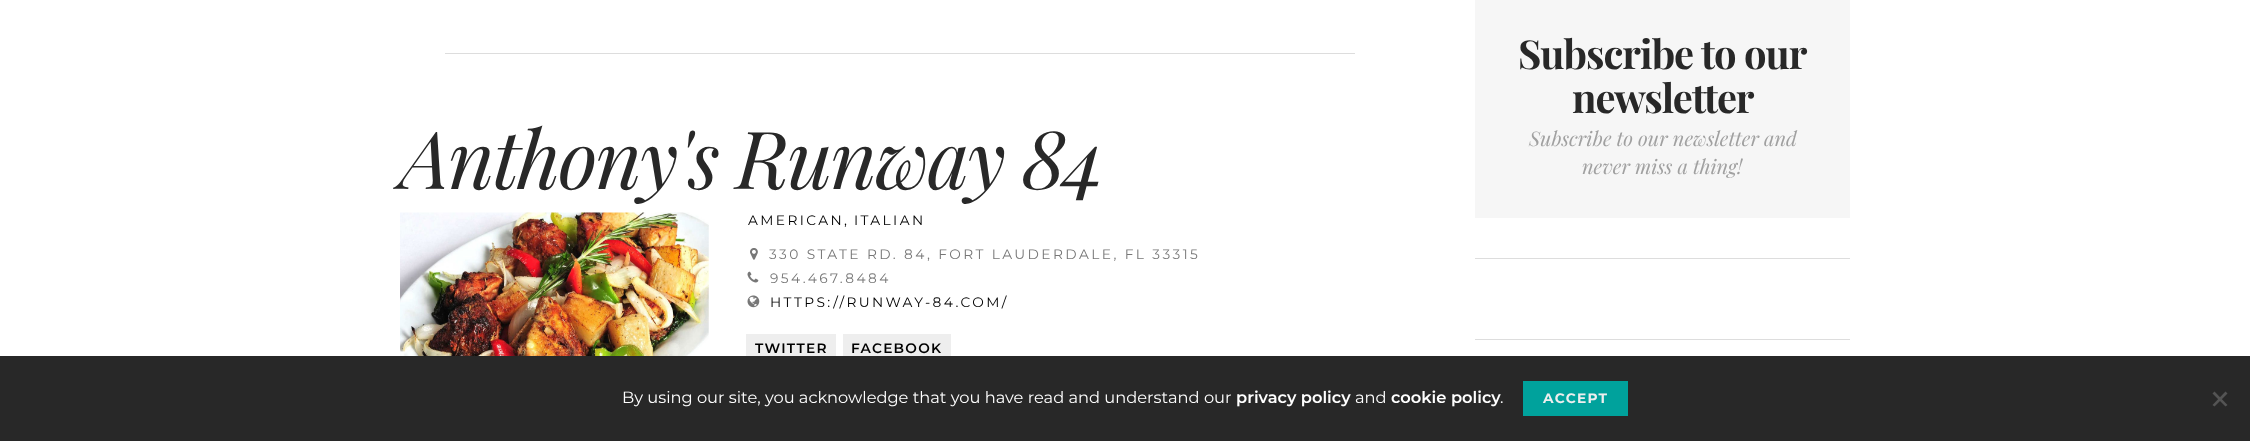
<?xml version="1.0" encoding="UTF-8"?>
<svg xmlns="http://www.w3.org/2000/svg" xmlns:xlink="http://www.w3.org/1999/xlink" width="2250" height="441">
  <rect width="100%" height="100%" fill="#ffffff" />
  <rect x="1475" width="375" height="218" fill="#f6f6f6" />
  <rect x="1475" y="258" width="375" height="1" fill="#dddddd" />
  <rect x="1475" y="339" width="375" height="1" fill="#dddddd" />
  <rect x="445" y="53" width="910" height="1" fill="#dddddd" />
  <image x="400" y="212" width="309" height="144" xlink:href="image1.png" />
  <image x="750" y="248" width="8" height="12" xlink:href="image2.png" />
  <image x="747" y="271" width="12" height="12" xlink:href="image3.png" />
  <image x="747" y="295" width="13" height="13" xlink:href="image4.png" />
  <rect x="746" y="334" width="90" height="22" fill="#eeeeee" />
  <rect x="843" y="334" width="108" height="22" fill="#eeeeee" />
  <rect y="356" width="2250" height="85" fill="#282828" />
  <rect x="1523" y="381" width="105" height="35" fill="#00a29c" />
  <path d="M 2225.5 391.5 l 2 2 l -13 13 l -2 -1.5 z" fill="#545454" />
  <path d="M 2212.5 393.5 l 2 -2 l 13 13.5 l -2 1.5 z" fill="#545454" />
  <text x="1518" y="69" style="font-family: Playfair Display; font-size: 40px; font-weight: bold; letter-spacing: -1px; fill: #282828">Subscribe to our</text>
  <text x="1572" y="113" style="font-family: Playfair Display; font-size: 40px; font-weight: bold; letter-spacing: -1px; fill: #282828">newsletter</text>
  <text x="1529" y="146" style="font-family: 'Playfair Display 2'; font-size: 20px; font-style: italic; fill: #a0a0a0">Subscribe to our newsletter and</text>
  <text x="1582" y="174" style="font-family: 'Playfair Display 2'; font-size: 20px; font-style: italic; fill: #a0a0a0">never miss a thing!</text>
  <text x="400" y="189" style="font-family: Playfair Display; font-size: 80px; font-style: italic; letter-spacing: -2px; fill: #282828">Anthony's Runway 84</text>
  <text x="748" y="225" style="font-family: Montserrat; font-size: 13.75px; letter-spacing: 2.4px; fill: #000000">AMERICAN,</text>
  <text x="854" y="225" style="font-family: Montserrat; font-size: 13.75px; letter-spacing: 2.4px; fill: #000000">ITALIAN</text>
  <text x="769" y="259" style="font-family: Montserrat; font-size: 13.75px; letter-spacing: 2.4px; fill: #777777">330 STATE RD. 84, FORT LAUDERDALE, FL 33315</text>
  <text x="770" y="283" style="font-family: Montserrat; font-size: 13.75px; letter-spacing: 2.4px; fill: #777777">954.467.8484</text>
  <text x="770" y="307" style="font-family: Montserrat; font-size: 13.75px; letter-spacing: 2.4px; fill: #000000">HTTPS://RUNWAY-84.COM/</text>
  <text x="755" y="353" style="font-family: Montserrat; font-size: 13.75px; font-weight: 600; letter-spacing: 1.25px; fill: #000000">TWITTER</text>
  <text x="851" y="353" style="font-family: Montserrat; font-size: 13.75px; font-weight: 600; letter-spacing: 1.25px; fill: #000000">FACEBOOK</text>
  <text x="622" y="403" style="font-family: 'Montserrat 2'; font-size: 16.25px; fill: #ffffff">By using our site, you acknowledge that you have read and understand our</text>
  <text x="1236" y="403" style="font-family: 'Montserrat 2'; font-size: 16.25px; font-weight: 600; fill: #ffffff">privacy policy</text>
  <text x="1355" y="403" style="font-family: 'Montserrat 2'; font-size: 16.25px; fill: #ffffff">and</text>
  <text x="1391" y="403" style="font-family: 'Montserrat 2'; font-size: 16.25px; font-weight: 600; fill: #ffffff">cookie policy</text>
  <text x="1500" y="403" style="font-family: 'Montserrat 2'; font-size: 16.25px; fill: #ffffff">.</text>
  <text x="1543" y="403" style="font-family: Montserrat; font-size: 13.75px; font-weight: bold; letter-spacing: 1.25px; fill: #eeeeee">ACCEPT</text>
</svg>
